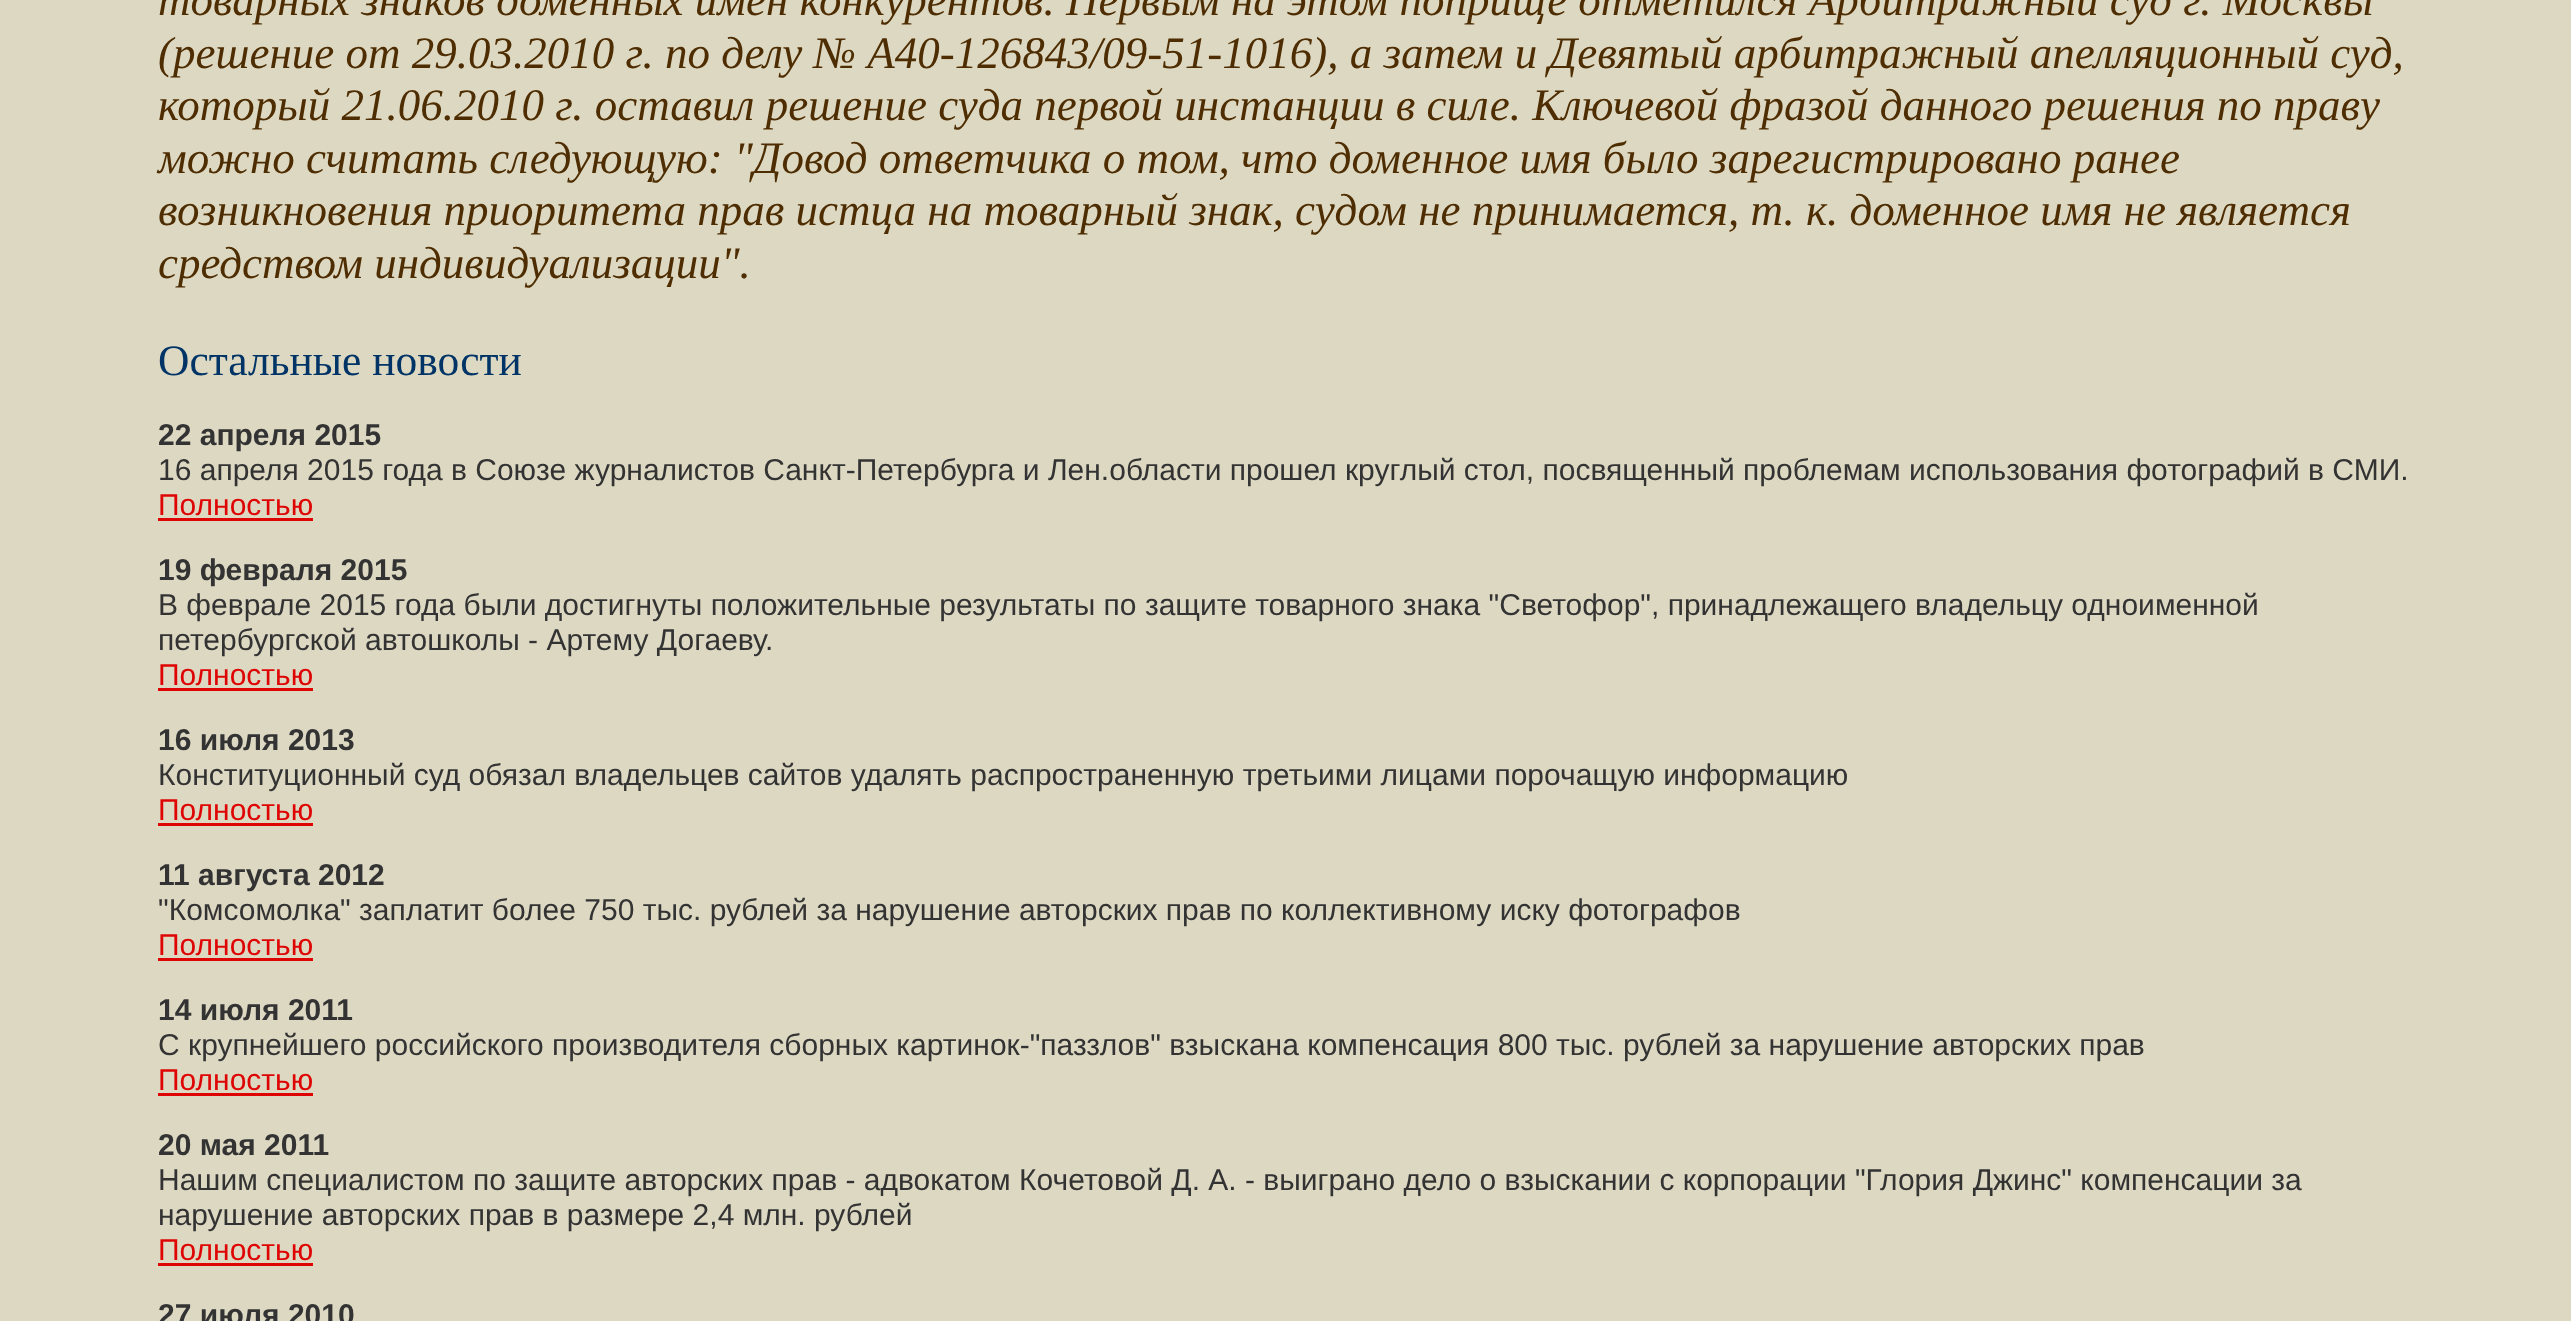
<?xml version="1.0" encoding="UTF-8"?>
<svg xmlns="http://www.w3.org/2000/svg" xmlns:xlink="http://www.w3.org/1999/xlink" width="2571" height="1321">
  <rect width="100%" height="100%" fill="#ddd8c2" />
  <rect x="158" y="518" width="155" height="3" fill="#de0404" />
  <rect x="158" y="688" width="155" height="3" fill="#de0404" />
  <rect x="158" y="823" width="155" height="3" fill="#de0404" />
  <rect x="158" y="958" width="155" height="3" fill="#de0404" />
  <rect x="158" y="1093" width="155" height="3" fill="#de0404" />
  <rect x="158" y="1263" width="155" height="3" fill="#de0404" />
  <text x="158" y="15" style="font-family: Liberation Serif; font-size: 45px; font-style: italic; fill: #4e2d02">товарных знаков доменных имен конкурентов. Первым на этом поприще отметился Арбитражный суд г. Москвы</text>
  <text x="158" y="68" style="font-family: Liberation Serif; font-size: 45px; font-style: italic; fill: #4e2d02">(решение от 29.03.2010 г. по делу № А40-126843/09-51-1016), а затем и Девятый арбитражный апелляционный суд,</text>
  <text x="158" y="120" style="font-family: Liberation Serif; font-size: 45px; font-style: italic; fill: #4e2d02">который 21.06.2010 г. оставил решение суда первой инстанции в силе. Ключевой фразой данного решения по праву</text>
  <text x="158" y="173" style="font-family: Liberation Serif; font-size: 45px; font-style: italic; fill: #4e2d02">можно считать следующую: "Довод ответчика о том, что доменное имя было зарегистрировано ранее</text>
  <text x="158" y="225" style="font-family: Liberation Serif; font-size: 45px; font-style: italic; fill: #4e2d02">возникновения приоритета прав истца на товарный знак, судом не принимается, т. к. доменное имя не является</text>
  <text x="158" y="278" style="font-family: Liberation Serif; font-size: 45px; font-style: italic; fill: #4e2d02">средством индивидуализации".</text>
  <text x="158" y="375" style="font-family: Liberation Serif; font-size: 43.5px; fill: #003366">Остальные новости</text>
  <text x="158" y="445" style="font-family: Liberation Sans; font-size: 30px; font-weight: bold; fill: #333333">22 апреля 2015</text>
  <text x="158" y="480" style="font-family: Liberation Sans; font-size: 30px; fill: #333333">16 апреля 2015 года в Союзе журналистов Санкт-Петербурга и Лен.области прошел круглый стол, посвященный проблемам использования фотографий в СМИ.</text>
  <text x="158" y="515" style="font-family: Liberation Sans; font-size: 30px; fill: #de0404">Полностью</text>
  <text x="158" y="580" style="font-family: Liberation Sans; font-size: 30px; font-weight: bold; fill: #333333">19 февраля 2015</text>
  <text x="158" y="615" style="font-family: Liberation Sans; font-size: 30px; fill: #333333">В феврале 2015 года были достигнуты положительные результаты по защите товарного знака "Светофор", принадлежащего владельцу одноименной</text>
  <text x="158" y="650" style="font-family: Liberation Sans; font-size: 30px; fill: #333333">петербургской автошколы - Артему Догаеву.</text>
  <text x="158" y="685" style="font-family: Liberation Sans; font-size: 30px; fill: #de0404">Полностью</text>
  <text x="158" y="750" style="font-family: Liberation Sans; font-size: 30px; font-weight: bold; fill: #333333">16 июля 2013</text>
  <text x="158" y="785" style="font-family: Liberation Sans; font-size: 30px; fill: #333333">Конституционный суд обязал владельцев сайтов удалять распространенную третьими лицами порочащую информацию</text>
  <text x="158" y="820" style="font-family: Liberation Sans; font-size: 30px; fill: #de0404">Полностью</text>
  <text x="158" y="885" style="font-family: Liberation Sans; font-size: 30px; font-weight: bold; fill: #333333">11 августа 2012</text>
  <text x="158" y="920" style="font-family: Liberation Sans; font-size: 30px; fill: #333333">"Комсомолка" заплатит более 750 тыс. рублей за нарушение авторских прав по коллективному иску фотографов</text>
  <text x="158" y="955" style="font-family: Liberation Sans; font-size: 30px; fill: #de0404">Полностью</text>
  <text x="158" y="1020" style="font-family: Liberation Sans; font-size: 30px; font-weight: bold; fill: #333333">14 июля 2011</text>
  <text x="158" y="1055" style="font-family: Liberation Sans; font-size: 30px; fill: #333333">С крупнейшего российского производителя сборных картинок-"паззлов" взыскана компенсация 800 тыс. рублей за нарушение авторских прав</text>
  <text x="158" y="1090" style="font-family: Liberation Sans; font-size: 30px; fill: #de0404">Полностью</text>
  <text x="158" y="1155" style="font-family: Liberation Sans; font-size: 30px; font-weight: bold; fill: #333333">20 мая 2011</text>
  <text x="158" y="1190" style="font-family: Liberation Sans; font-size: 30px; fill: #333333">Нашим специалистом по защите авторских прав - адвокатом Кочетовой Д. А. - выиграно дело о взыскании с корпорации "Глория Джинс" компенсации за</text>
  <text x="158" y="1225" style="font-family: Liberation Sans; font-size: 30px; fill: #333333">нарушение авторских прав в размере 2,4 млн. рублей</text>
  <text x="158" y="1260" style="font-family: Liberation Sans; font-size: 30px; fill: #de0404">Полностью</text>
  <text x="158" y="1325" style="font-family: Liberation Sans; font-size: 30px; font-weight: bold; fill: #333333">27 июля 2010</text>
</svg>
